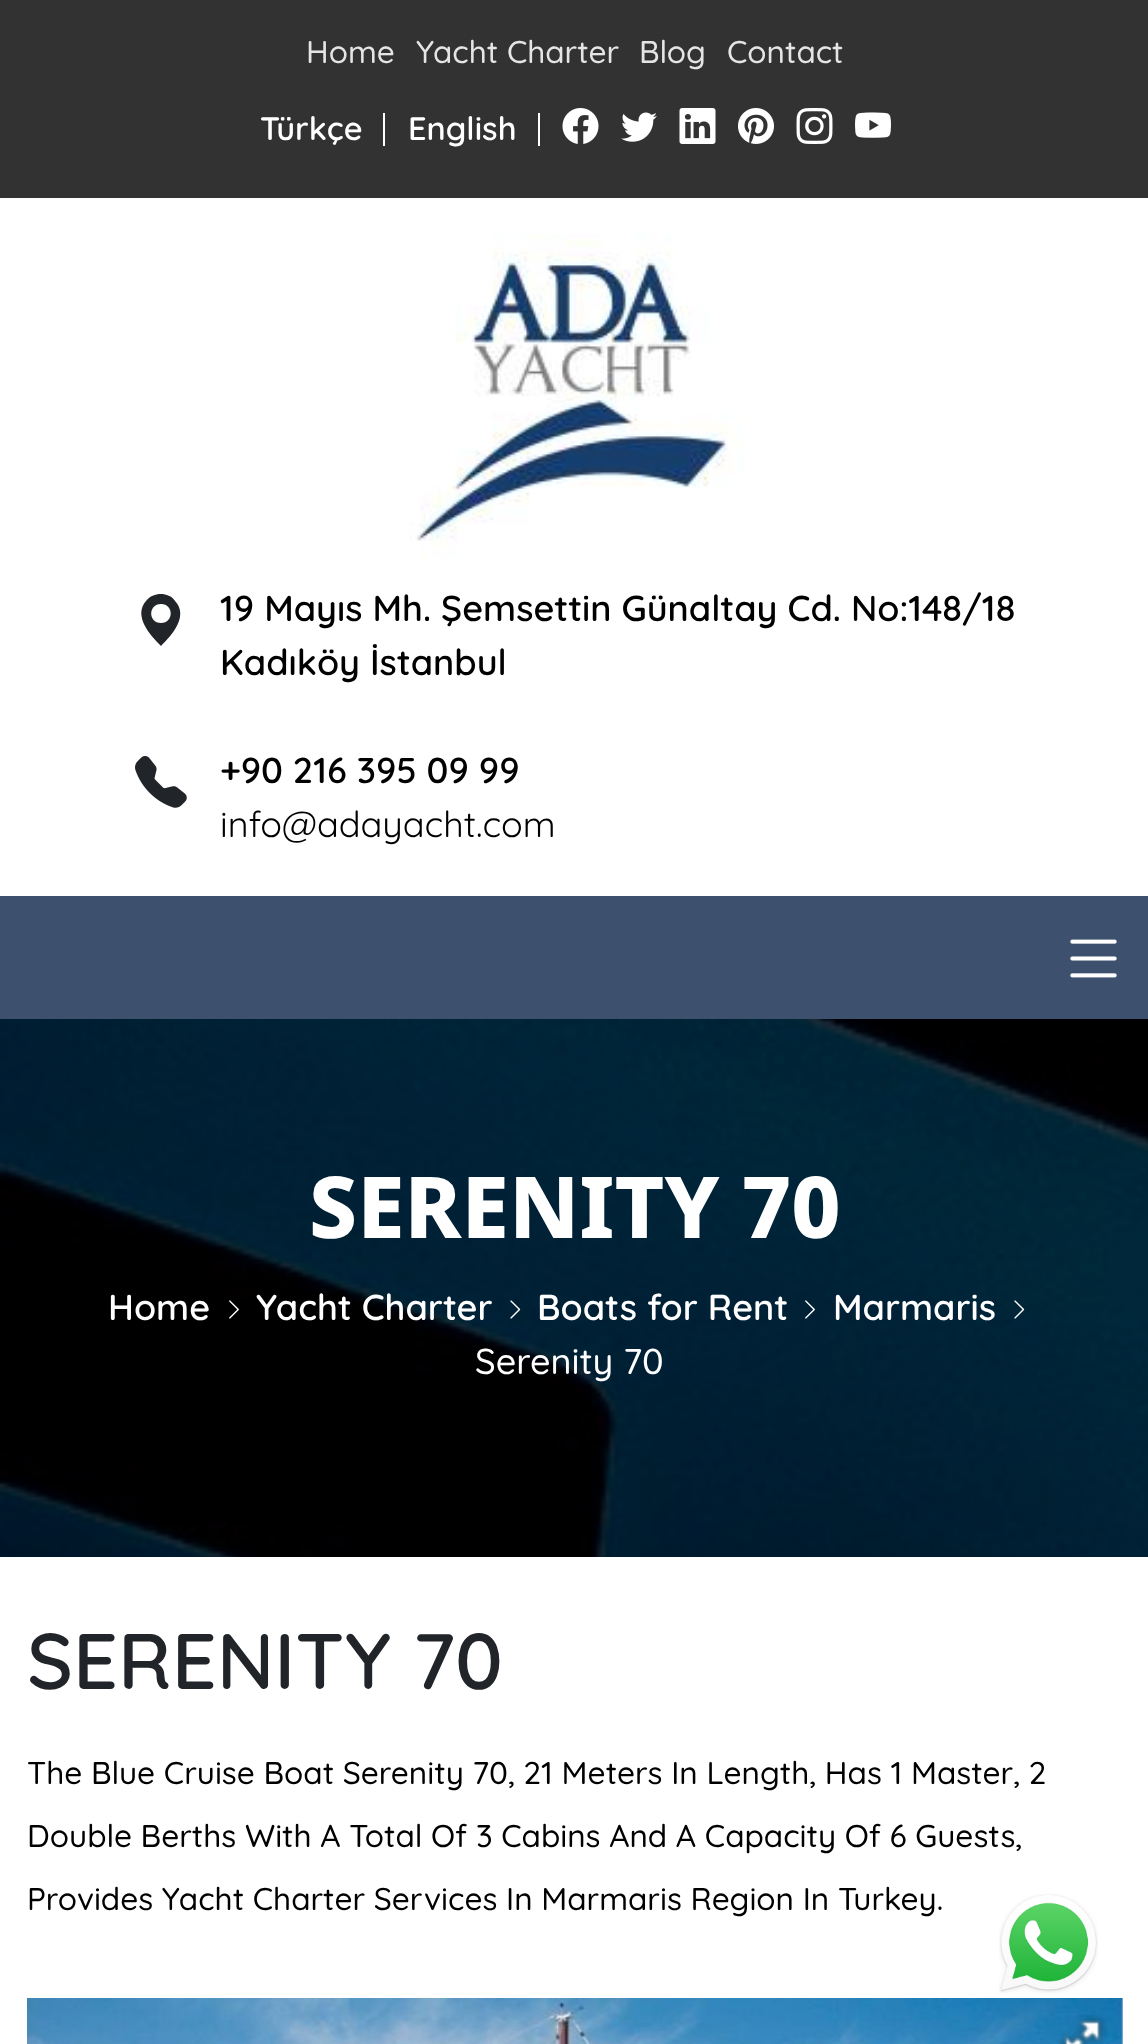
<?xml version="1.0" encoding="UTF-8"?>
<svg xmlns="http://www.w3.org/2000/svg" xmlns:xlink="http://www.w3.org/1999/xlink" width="1148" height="2044">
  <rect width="100%" height="100%" fill="#ffffff" />
  <rect width="1148" height="198" fill="#323232" />
  <rect x="383" y="113" width="2" height="33" fill="#ffffff" />
  <rect x="538" y="113" width="2" height="33" fill="#ffffff" />
  <image x="562" y="108" width="37" height="36" xlink:href="image1.png" />
  <image x="621" y="112" width="36" height="30" xlink:href="image2.png" />
  <image x="679" y="108" width="37" height="36" xlink:href="image3.png" />
  <image x="738" y="108" width="36" height="36" xlink:href="image4.png" />
  <image x="796" y="108" width="37" height="36" xlink:href="image5.png" />
  <image x="855" y="112" width="36" height="26" xlink:href="image6.png" />
  <image x="410" y="234" width="334" height="324" xlink:href="image7.png" />
  <path d="M 161 646 c 11 -11 28 -30 14 -45 c -3 -5 -9 -7 -14 -7 c -6 0 -11 2 -15 7 c -13 15 4 34 15 45 z m 0 -23 c -13 0 -13 -19 0 -19 c 13 0 13 19 0 19 z" fill="#212529" />
  <image x="135" y="756" width="52" height="52" xlink:href="image8.png" />
  <rect y="896" width="1148" height="123" fill="#3d506d" />
  <image x="1070" y="939" width="47" height="39" xlink:href="image9.png" />
  <image x="0" y="1019" width="1148" height="538" xlink:href="image10.png" />
  <image x="229" y="1300" width="10" height="19" xlink:href="image11.png" />
  <image x="510" y="1300" width="11" height="19" xlink:href="image12.png" />
  <image x="805" y="1300" width="10" height="19" xlink:href="image13.png" />
  <image x="1014" y="1300" width="11" height="19" xlink:href="image14.png" />
  <image x="27" y="1998" width="1096" height="46" xlink:href="image15.png" />
  <image x="1058" y="2014" width="49" height="30" xlink:href="image16.png" />
  <image x="999" y="1894" width="99" height="99" xlink:href="image17.png" />
  <text x="306" y="63" style="font-family: Quicksand; font-size: 31.5px; font-weight: 500; fill: #e5e5e5">Home</text>
  <text x="416" y="63" style="font-family: Quicksand; font-size: 31.5px; font-weight: 500; fill: #e5e5e5">Yacht Charter</text>
  <text x="639" y="63" style="font-family: Quicksand; font-size: 31.5px; font-weight: 500; fill: #e5e5e5">Blog</text>
  <text x="727" y="63" style="font-family: Quicksand; font-size: 31.5px; font-weight: 500; fill: #e5e5e5">Contact</text>
  <text x="260" y="140" style="font-family: Quicksand; font-size: 32.5px; font-weight: 600; fill: #ffffff">Türkçe</text>
  <text x="408" y="140" style="font-family: Quicksand; font-size: 32.5px; font-weight: 600; fill: #ffffff">English</text>
  <text x="220" y="621" style="font-family: Quicksand; font-size: 36px; font-weight: 600; fill: #000000">19 Mayıs Mh. Şemsettin Günaltay Cd. No:148/18</text>
  <text x="220" y="675" style="font-family: Quicksand; font-size: 36px; font-weight: 600; fill: #000000">Kadıköy İstanbul</text>
  <text x="220" y="783" style="font-family: Quicksand; font-size: 36px; font-weight: 600; fill: #000000">+90 216 395 09 99</text>
  <text x="220" y="837" style="font-family: Quicksand; font-size: 36px; fill: #000000">info@adayacht.com</text>
  <text x="309" y="1238" style="font-family: Noto Sans; font-size: 85.5px; font-weight: 800; fill: #ffffff">SERENITY 70</text>
  <text x="108" y="1320" style="font-family: Quicksand; font-size: 36px; font-weight: 600; fill: #ffffff">Home</text>
  <text x="256" y="1320" style="font-family: Quicksand; font-size: 36px; font-weight: 600; fill: #ffffff">Yacht Charter</text>
  <text x="537" y="1320" style="font-family: Quicksand; font-size: 36px; font-weight: 600; fill: #ffffff">Boats for Rent</text>
  <text x="833" y="1320" style="font-family: Quicksand; font-size: 36px; font-weight: 600; fill: #ffffff">Marmaris</text>
  <text x="475" y="1374" style="font-family: Quicksand; font-size: 36px; font-weight: 500; fill: #ffffff">Serenity 70</text>
  <text x="27" y="1689" style="font-family: Quicksand; font-size: 78.75px; font-weight: 600; fill: #212529">SERENITY 70</text>
  <text x="27" y="1784" style="font-family: Quicksand; font-size: 31.5px; font-weight: 500; fill: #000000">The Blue Cruise Boat Serenity 70, 21 Meters In Length, Has 1 Master, 2</text>
  <text x="27" y="1847" style="font-family: Quicksand; font-size: 31.5px; font-weight: 500; fill: #000000">Double Berths With A Total Of 3 Cabins And A Capacity Of 6 Guests,</text>
  <text x="27" y="1910" style="font-family: Quicksand; font-size: 31.5px; font-weight: 500; fill: #000000">Provides Yacht Charter Services In Marmaris Region In Turkey.</text>
</svg>
